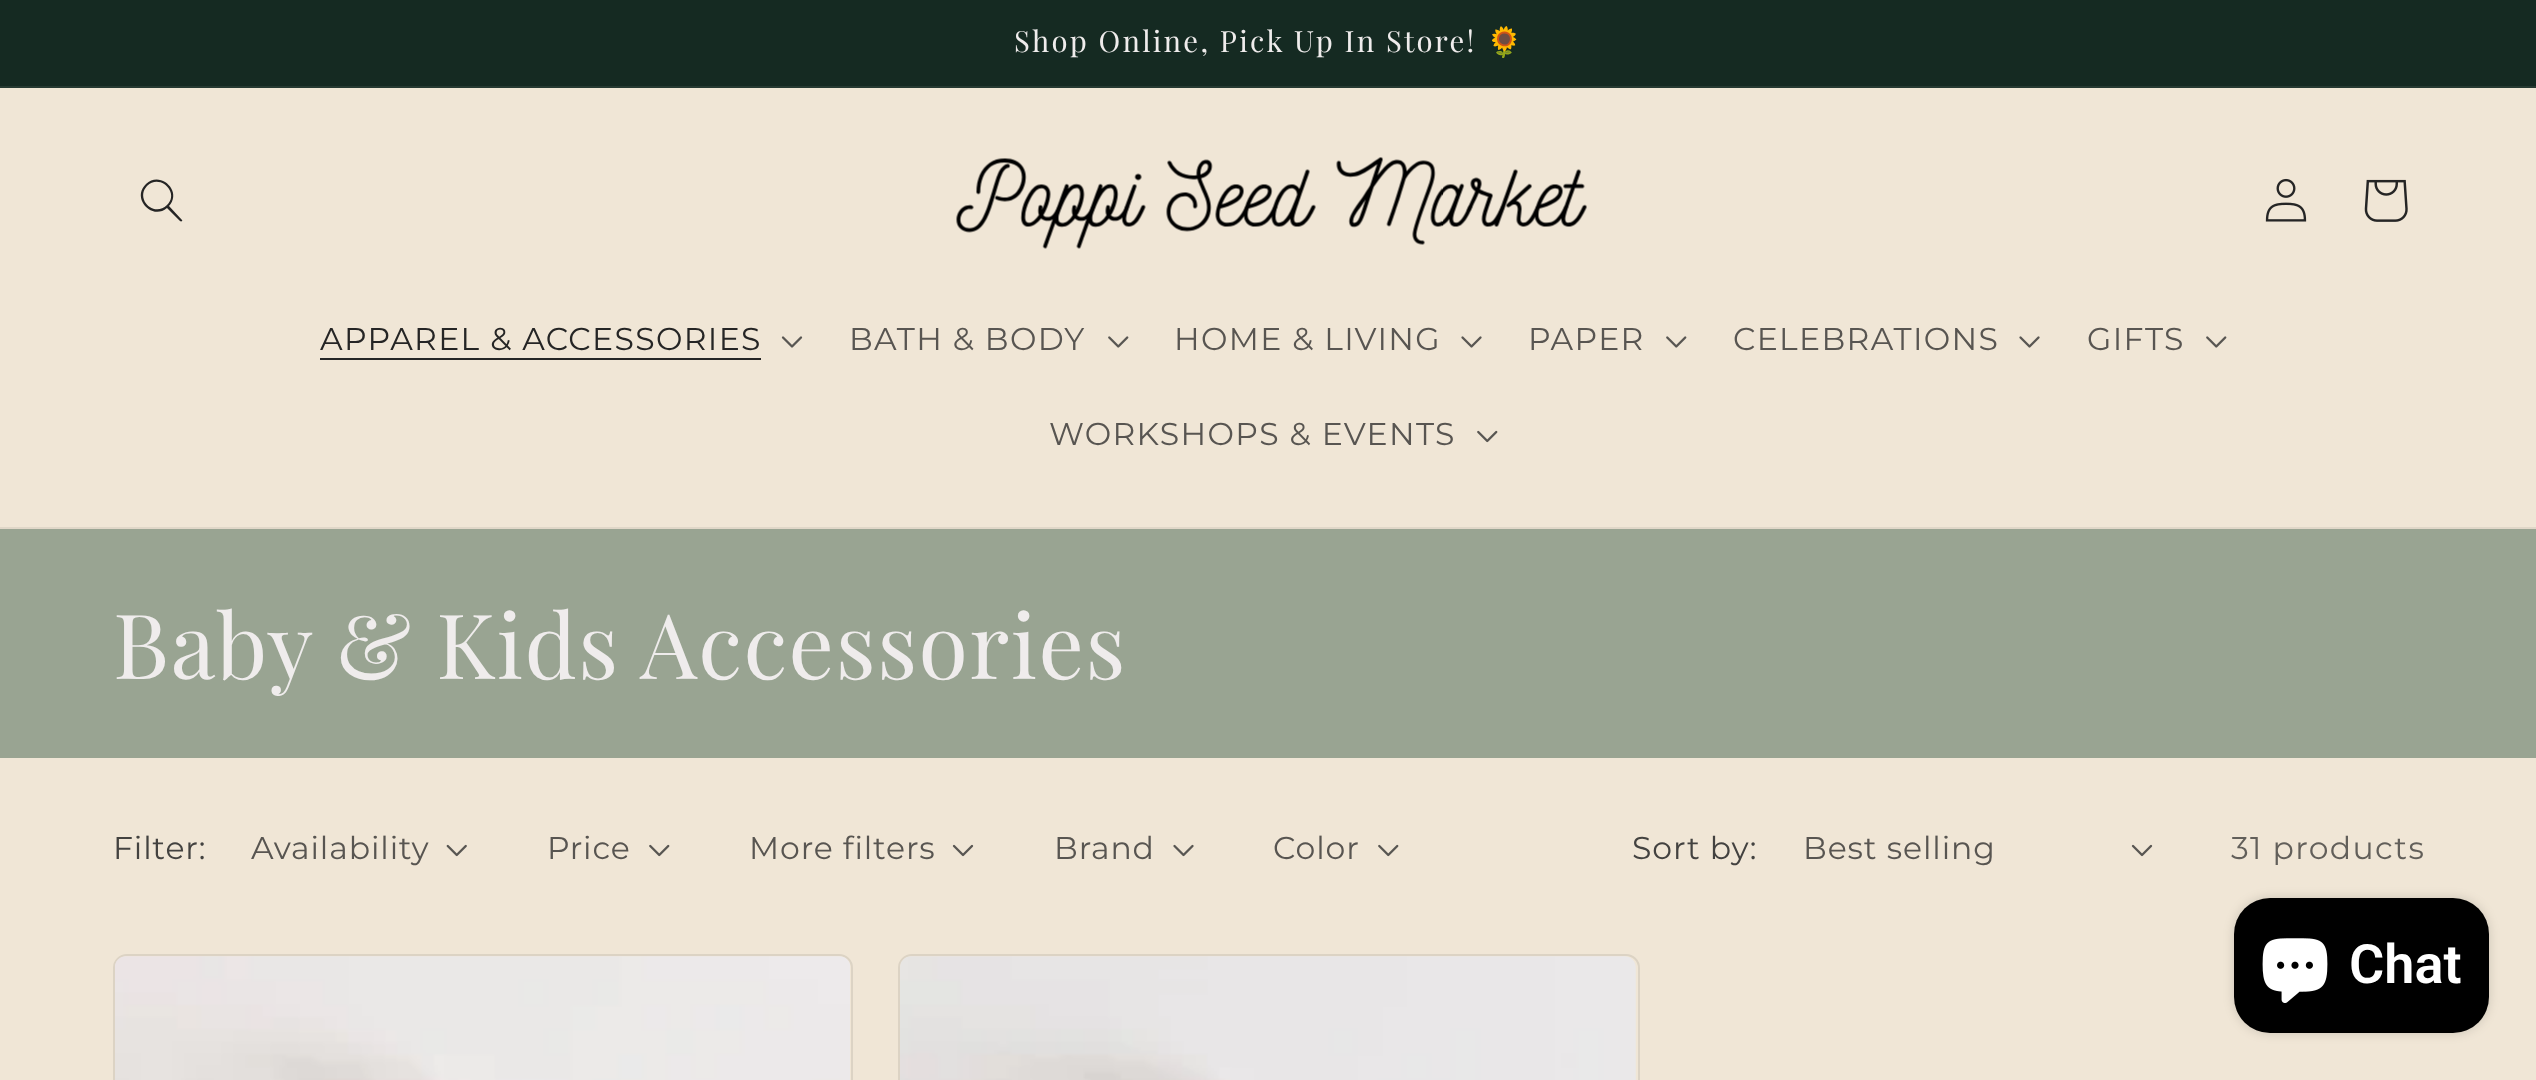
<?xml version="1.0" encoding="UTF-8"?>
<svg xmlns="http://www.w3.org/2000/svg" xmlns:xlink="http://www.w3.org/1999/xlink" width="2536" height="1080">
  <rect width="100%" height="100%" fill="#f0e6d6" />
  <rect width="2536" height="86" fill="#152a22" />
  <rect y="86" width="2536" height="2" fill="#263a32" />
  <rect y="527" width="2536" height="2" fill="#e0d7c8" />
  <path d="M 167 205 c -13 13 -32 -6 -20 -19 c 13 -13 33 7 20 19 m 0 3 c -15 13 -36 -10 -21 -24 c 14 -14 37 7 23 22 l 13 14 c 1 1 -1 2 -2 1 z" fill="#252525" fill-rule="evenodd" />
  <image x="956" y="157" width="631" height="92" xlink:href="image1.png" />
  <image x="2265" y="178" width="42" height="44" xlink:href="image2.png" />
  <image x="2364" y="179" width="44" height="43" xlink:href="image3.png" />
  <rect x="320" y="358" width="441" height="2" fill="#252525" />
  <image x="781" y="336" width="22" height="12" xlink:href="image4.png" />
  <image x="1108" y="336" width="21" height="12" xlink:href="image5.png" />
  <image x="1461" y="336" width="21" height="12" xlink:href="image6.png" />
  <image x="1666" y="336" width="21" height="12" xlink:href="image5.png" />
  <image x="2019" y="336" width="21" height="12" xlink:href="image6.png" />
  <image x="2206" y="336" width="21" height="12" xlink:href="image5.png" />
  <image x="1477" y="430" width="21" height="13" xlink:href="image7.png" />
  <rect y="529" width="2536" height="229" fill="#99a492" />
  <image x="446" y="844" width="21" height="13" xlink:href="image8.png" />
  <image x="649" y="844" width="21" height="13" xlink:href="image7.png" />
  <image x="952" y="844" width="22" height="13" xlink:href="image9.png" />
  <image x="1173" y="844" width="21" height="13" xlink:href="image10.png" />
  <image x="1378" y="844" width="21" height="13" xlink:href="image7.png" />
  <image x="2131" y="844" width="22" height="13" xlink:href="image9.png" />
  <rect x="114" y="955" width="738" height="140" rx="13" fill="none" stroke="#dcd3c4" stroke-width="2" />
  <image x="115" y="956" width="735" height="124" xlink:href="image11.png" />
  <rect x="899" y="955" width="740" height="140" rx="13" fill="none" stroke="#dcd3c4" stroke-width="2" />
  <image x="900" y="956" width="736" height="124" xlink:href="image12.png" />
  <rect x="2234" y="898" width="255" height="135" rx="36" fill="#000000" fill-opacity="0.15" filter="blur(5.5px)" />
  <rect x="2234" y="898" width="255" height="135" rx="36" fill="#000000" />
  <image x="2262" y="938" width="66" height="65" xlink:href="image13.png" />
  <text x="1014" y="52" style="font-family: Playfair Display; font-size: 29.25px; letter-spacing: 2.25px; fill: #efecec">Shop Online, Pick Up In Store!</text>
  <text x="1486" y="52" style="font-family: Noto Color Emoji; font-size: 29.25px; letter-spacing: 2.25px; fill: #efecec">🌻</text>
  <text x="320" y="350" style="font-family: Montserrat; font-size: 31.5px; letter-spacing: 1.35px; fill: #252525">APPAREL &amp; ACCESSORIES</text>
  <text x="849" y="350" style="font-family: Montserrat; font-size: 31.5px; letter-spacing: 1.35px; fill: #585551">BATH &amp; BODY</text>
  <text x="1174" y="350" style="font-family: Montserrat; font-size: 31.5px; letter-spacing: 1.35px; fill: #585551">HOME &amp; LIVING</text>
  <text x="1528" y="350" style="font-family: Montserrat; font-size: 31.5px; letter-spacing: 1.35px; fill: #585551">PAPER</text>
  <text x="1733" y="350" style="font-family: Montserrat; font-size: 31.5px; letter-spacing: 1.35px; fill: #585551">CELEBRATIONS</text>
  <text x="2087" y="350" style="font-family: Montserrat; font-size: 31.5px; letter-spacing: 1.35px; fill: #585551">GIFTS</text>
  <text x="1049" y="445" style="font-family: Montserrat; font-size: 31.5px; letter-spacing: 1.35px; fill: #585551">WORKSHOPS &amp; EVENTS</text>
  <text x="113" y="679" style="font-family: Playfair Display; font-size: 90px; letter-spacing: 1.35px; fill: #efecec">Baby &amp; Kids Accessories</text>
  <text x="113" y="859" style="font-family: Montserrat; font-size: 31.5px; letter-spacing: 0.9px; fill: #434240">Filter:</text>
  <text x="251" y="859" style="font-family: Montserrat; font-size: 31.5px; letter-spacing: 0.9px; fill: #585551">Availability</text>
  <text x="547" y="859" style="font-family: Montserrat; font-size: 31.5px; letter-spacing: 0.9px; fill: #585551">Price</text>
  <text x="749" y="859" style="font-family: Montserrat; font-size: 31.5px; letter-spacing: 0.9px; fill: #585551">More filters</text>
  <text x="1054" y="859" style="font-family: Montserrat; font-size: 31.5px; letter-spacing: 0.9px; fill: #585551">Brand</text>
  <text x="1273" y="859" style="font-family: Montserrat; font-size: 31.5px; letter-spacing: 0.9px; fill: #585551">Color</text>
  <text x="1632" y="859" style="font-family: Montserrat; font-size: 31.5px; letter-spacing: 0.9px; fill: #434240">Sort by:</text>
  <text x="1803" y="859" style="font-family: Montserrat; font-size: 31.5px; letter-spacing: 0.9px; fill: #585551">Best selling</text>
  <text x="2231" y="859" style="font-family: Montserrat; font-size: 31.5px; letter-spacing: 1.35px; fill: #625f5a">31 products</text>
  <text x="2349" y="983" style="font-family: Roboto; font-size: 54px; font-weight: 600; fill: #ffffff">Chat</text>
</svg>
